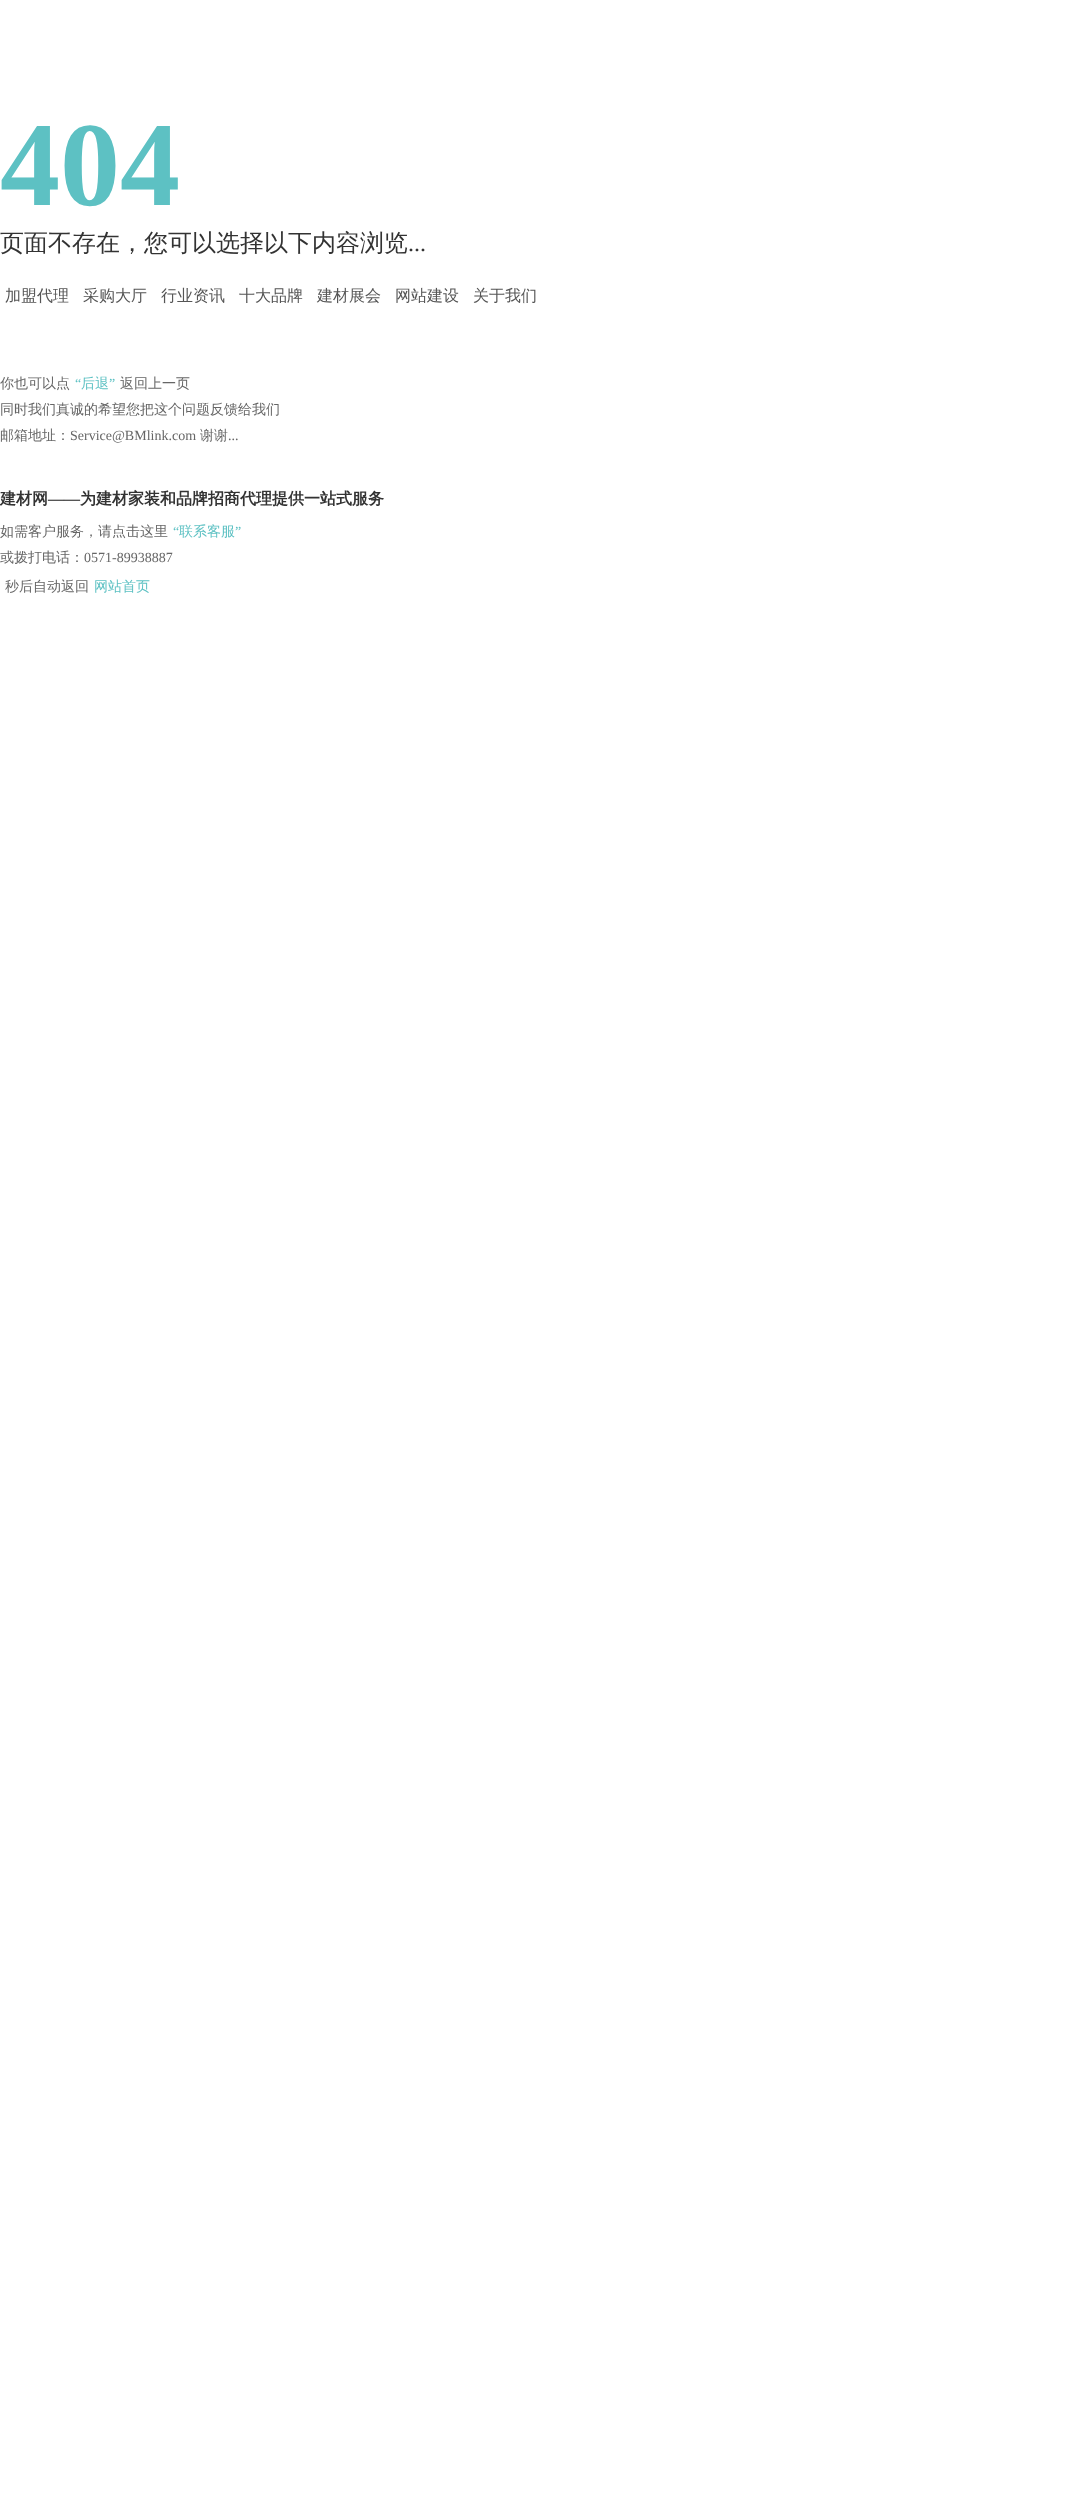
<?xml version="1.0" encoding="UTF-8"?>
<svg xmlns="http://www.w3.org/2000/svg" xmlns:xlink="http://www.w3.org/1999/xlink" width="1078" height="2496">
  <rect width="100%" height="100%" fill="#ffffff" />
  <text x="0" y="205" style="font-family: Liberation Serif; font-size: 120px; font-weight: bold; fill: #5dc1c3">404</text>
  <text x="0" y="251" style="font-family: WenQuanYi Zen Hei; font-size: 24px; font-weight: 500; fill: #333333">页面不存在，您可以选择以下内容浏览</text>
  <text x="408" y="251" style="font-family: Liberation Serif; font-size: 24px; fill: #333333">...</text>
  <text x="5" y="301" style="font-family: WenQuanYi Zen Hei; font-size: 16px; font-weight: 500; fill: #555555">加盟代理</text>
  <text x="83" y="301" style="font-family: WenQuanYi Zen Hei; font-size: 16px; font-weight: 500; fill: #555555">采购大厅</text>
  <text x="161" y="301" style="font-family: WenQuanYi Zen Hei; font-size: 16px; font-weight: 500; fill: #555555">行业资讯</text>
  <text x="239" y="301" style="font-family: WenQuanYi Zen Hei; font-size: 16px; font-weight: 500; fill: #555555">十大品牌</text>
  <text x="317" y="301" style="font-family: WenQuanYi Zen Hei; font-size: 16px; font-weight: 500; fill: #555555">建材展会</text>
  <text x="395" y="301" style="font-family: WenQuanYi Zen Hei; font-size: 16px; font-weight: 500; fill: #555555">网站建设</text>
  <text x="473" y="301" style="font-family: WenQuanYi Zen Hei; font-size: 16px; font-weight: 500; fill: #555555">关于我们</text>
  <text x="0" y="388" style="font-family: WenQuanYi Zen Hei; font-size: 14px; font-weight: 500; fill: #666666">你也可以点</text>
  <text x="75" y="388" style="font-family: Liberation Serif; font-size: 14px; fill: #5dc1c3">“</text>
  <text x="81" y="388" style="font-family: WenQuanYi Zen Hei; font-size: 14px; font-weight: 500; fill: #5dc1c3">后退</text>
  <text x="109" y="388" style="font-family: Liberation Serif; font-size: 14px; fill: #5dc1c3">”</text>
  <text x="120" y="388" style="font-family: WenQuanYi Zen Hei; font-size: 14px; font-weight: 500; fill: #666666">返回上一页</text>
  <text x="0" y="414" style="font-family: WenQuanYi Zen Hei; font-size: 14px; font-weight: 500; fill: #666666">同时我们真诚的希望您把这个问题反馈给我们</text>
  <text x="0" y="440" style="font-family: WenQuanYi Zen Hei; font-size: 14px; font-weight: 500; fill: #666666">邮箱地址：</text>
  <text x="70" y="440" style="font-family: Liberation Serif; font-size: 14px; fill: #666666">Service@BMlink.com</text>
  <text x="200" y="440" style="font-family: WenQuanYi Zen Hei; font-size: 14px; font-weight: 500; fill: #666666">谢谢</text>
  <text x="228" y="440" style="font-family: Liberation Serif; font-size: 14px; fill: #666666">...</text>
  <text x="0" y="504" style="font-family: WenQuanYi Zen Hei; font-size: 16px; font-weight: bold; fill: #333333">建材网</text>
  <text x="48" y="504" style="font-family: Liberation Serif; font-size: 16px; font-weight: bold; fill: #333333">——</text>
  <text x="80" y="504" style="font-family: WenQuanYi Zen Hei; font-size: 16px; font-weight: bold; fill: #333333">为建材家装和品牌招商代理提供一站式服务</text>
  <text x="0" y="536" style="font-family: WenQuanYi Zen Hei; font-size: 14px; font-weight: 500; fill: #666666">如需客户服务，请点击这里</text>
  <text x="173" y="536" style="font-family: Liberation Serif; font-size: 14px; fill: #5dc1c3">“</text>
  <text x="179" y="536" style="font-family: WenQuanYi Zen Hei; font-size: 14px; font-weight: 500; fill: #5dc1c3">联系客服</text>
  <text x="235" y="536" style="font-family: Liberation Serif; font-size: 14px; fill: #5dc1c3">”</text>
  <text x="0" y="562" style="font-family: WenQuanYi Zen Hei; font-size: 14px; font-weight: 500; fill: #666666">或拨打电话：</text>
  <text x="84" y="562" style="font-family: Liberation Serif; font-size: 14px; fill: #666666">0571-89938887</text>
  <text x="5" y="591" style="font-family: WenQuanYi Zen Hei; font-size: 14px; font-weight: 500; fill: #666666">秒后自动返回</text>
  <text x="94" y="591" style="font-family: WenQuanYi Zen Hei; font-size: 14px; font-weight: 500; fill: #5dc1c3">网站首页</text>
</svg>
